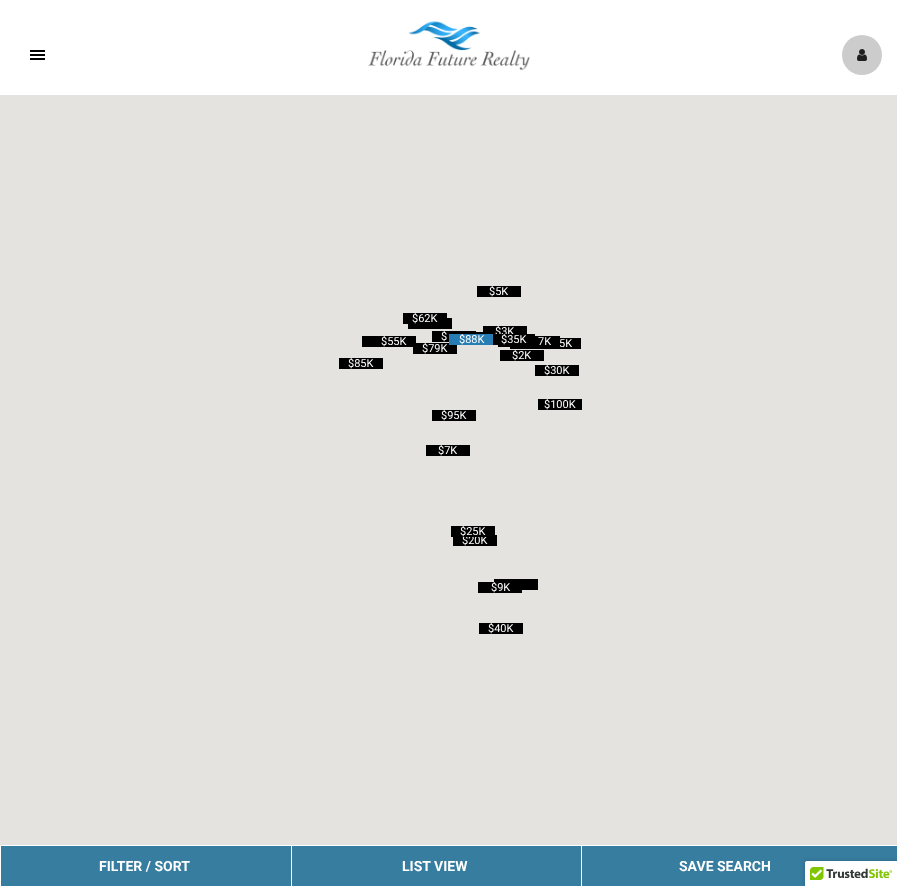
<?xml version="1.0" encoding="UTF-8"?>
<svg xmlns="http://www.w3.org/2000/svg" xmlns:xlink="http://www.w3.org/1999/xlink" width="897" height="886">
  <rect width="100%" height="100%" fill="#ffffff" />
  <rect x="30" y="50" width="15" height="2" fill="#000000" />
  <rect x="30" y="54" width="15" height="2" fill="#000000" />
  <rect x="30" y="58" width="15" height="2" fill="#000000" />
  <image x="368" y="21" width="162" height="50" xlink:href="image1.png" />
  <circle cx="862" cy="55" r="20" fill="#cccccc" />
  <image x="857" y="49" width="10" height="12" xlink:href="image2.png" />
  <rect y="95" width="897" height="750" fill="#e5e3df" />
  <rect x="477" y="286" width="44" height="11" fill="#000000" />
  <rect x="408" y="318" width="44" height="11" fill="#000000" />
  <rect x="403" y="313" width="44" height="11" fill="#000000" />
  <rect x="432" y="331" width="44" height="11" fill="#000000" />
  <rect x="476" y="332" width="7" height="2" fill="#000000" />
  <rect x="483" y="326" width="44" height="8" fill="#000000" />
  <rect x="362" y="336" width="54" height="11" fill="#000000" />
  <rect x="413" y="343" width="44" height="11" fill="#000000" />
  <rect x="449" y="334" width="44" height="11" fill="#277cb4" />
  <rect x="498" y="345" width="18" height="2" fill="#000000" />
  <rect x="537" y="338" width="44" height="11" fill="#000000" />
  <rect x="510" y="347" width="27" height="2" fill="#000000" />
  <rect x="500" y="350" width="44" height="11" fill="#000000" />
  <rect x="339" y="358" width="44" height="11" fill="#000000" />
  <rect x="535" y="365" width="44" height="11" fill="#000000" />
  <rect x="538" y="399" width="44" height="11" fill="#000000" />
  <rect x="432" y="410" width="44" height="11" fill="#000000" />
  <rect x="426" y="445" width="44" height="11" fill="#000000" />
  <rect x="453" y="535" width="44" height="11" fill="#000000" />
  <rect x="494" y="579" width="44" height="11" fill="#000000" />
  <rect x="478" y="582" width="44" height="11" fill="#000000" />
  <rect x="479" y="623" width="44" height="11" fill="#000000" />
  <rect x="1" y="846" width="896" height="40" fill="#377da0" />
  <rect x="291" y="846" width="1" height="40" fill="#ffffff" />
  <rect x="581" y="846" width="1" height="40" fill="#ffffff" />
  <rect x="805" y="861" width="92" height="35" rx="2" fill="#000000" fill-opacity="0.2" filter="blur(2.5px)" />
  <path d="M 807 861 h 90 v 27 h -92 v -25 c 0 -1 1 -2 2 -2 z" fill="#ffffff" />
  <image x="805" y="861" width="92" height="19" xlink:href="image3.png" />
  <text x="489" y="295" style="font-family: Roboto; font-size: 11px; fill: #ffffff">$5K</text>
  <text x="412" y="322" style="font-family: Roboto; font-size: 11px; fill: #ffffff">$62K</text>
  <text x="441" y="340" style="font-family: Roboto; font-size: 11px; fill: #ffffff">$</text>
  <text x="495" y="335" style="font-family: Roboto; font-size: 11px; fill: #ffffff">$3K</text>
  <text x="381" y="345" style="font-family: Roboto; font-size: 11px; fill: #ffffff">$55K</text>
  <text x="459" y="343" style="font-family: Roboto; font-size: 11px; fill: #ffffff">$88K</text>
  <text x="422" y="352" style="font-family: Roboto; font-size: 11px; fill: #ffffff">$79K</text>
  <text x="559" y="347" style="font-family: Roboto; font-size: 11px; fill: #ffffff">5K</text>
  <rect x="516" y="336" width="44" height="11" fill="#000000" />
  <rect x="493" y="334" width="42" height="11" fill="#000000" />
  <text x="501" y="343" style="font-family: Roboto; font-size: 11px; fill: #ffffff">$35K</text>
  <text x="538" y="345" style="font-family: Roboto; font-size: 11px; fill: #ffffff">7K</text>
  <text x="512" y="359" style="font-family: Roboto; font-size: 11px; fill: #ffffff">$2K</text>
  <text x="348" y="367" style="font-family: Roboto; font-size: 11px; fill: #ffffff">$85K</text>
  <text x="544" y="374" style="font-family: Roboto; font-size: 11px; fill: #ffffff">$30K</text>
  <text x="544" y="408" style="font-family: Roboto; font-size: 11px; fill: #ffffff">$100K</text>
  <text x="441" y="419" style="font-family: Roboto; font-size: 11px; fill: #ffffff">$95K</text>
  <text x="438" y="454" style="font-family: Roboto; font-size: 11px; fill: #ffffff">$7K</text>
  <text x="462" y="544" style="font-family: Roboto; font-size: 11px; fill: #ffffff">$20K</text>
  <rect x="451" y="526" width="44" height="11" fill="#000000" />
  <text x="460" y="535" style="font-family: Roboto; font-size: 11px; fill: #ffffff">$25K</text>
  <text x="491" y="591" style="font-family: Roboto; font-size: 11px; fill: #ffffff">$9K</text>
  <text x="488" y="632" style="font-family: Roboto; font-size: 11px; fill: #ffffff">$40K</text>
  <text x="99" y="871" style="font-family: Roboto; font-size: 14px; font-weight: bold; fill: #ffffff">FILTER / SORT</text>
  <text x="402" y="871" style="font-family: Roboto; font-size: 14px; font-weight: bold; fill: #ffffff">LIST VIEW</text>
  <text x="679" y="871" style="font-family: Roboto; font-size: 14px; font-weight: bold; fill: #ffffff">SAVE SEARCH</text>
</svg>
